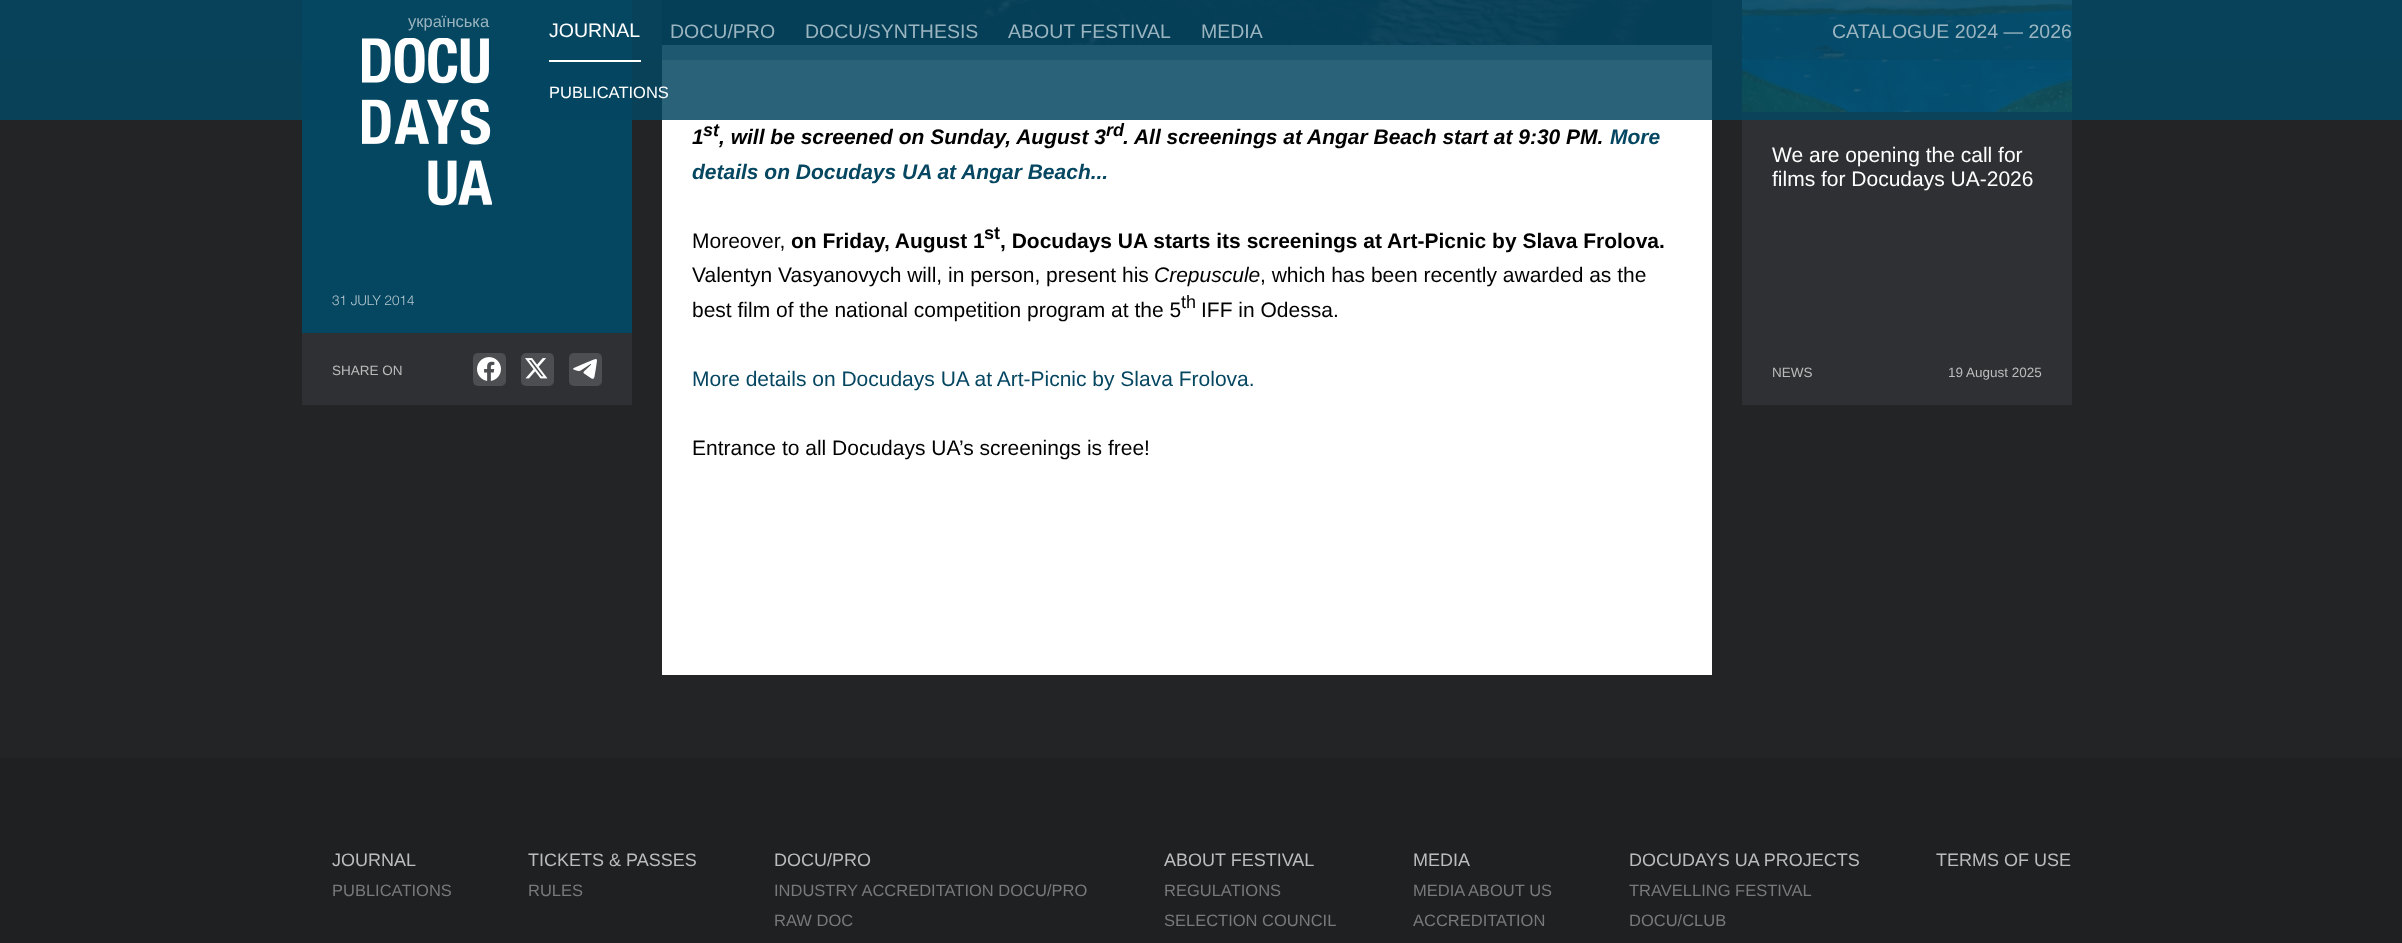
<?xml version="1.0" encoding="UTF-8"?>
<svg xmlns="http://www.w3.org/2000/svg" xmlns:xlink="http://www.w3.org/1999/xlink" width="2402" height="943">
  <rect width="100%" height="100%" fill="#222426" />
  <rect x="302" width="330" height="333" fill="#054661" />
  <rect x="662" y="45" width="1050" height="630" fill="#ffffff" />
  <image x="662" y="0" width="1050" height="45" xlink:href="image5.png" />
  <image x="1742" y="0" width="330" height="112" xlink:href="image6.png" />
  <rect width="2402" height="60" fill="#054661" fill-opacity="0.9" />
  <rect x="1742" y="112" width="330" height="293" fill="#2e3033" />
  <rect y="60" width="2402" height="60" fill="#054661" fill-opacity="0.85" />
  <image x="362" y="38" width="130" height="168" xlink:href="image1.png" />
  <rect x="549" y="60" width="92" height="2" fill="#ffffff" />
  <rect x="302" y="333" width="330" height="72" fill="#2e3033" />
  <rect x="473" y="353" width="33" height="33" rx="5" fill="#4d4e51" />
  <image x="477" y="357" width="24" height="24" xlink:href="image2.png" />
  <rect x="521" y="353" width="33" height="33" rx="5" fill="#4d4e51" />
  <image x="525" y="358" width="23" height="21" xlink:href="image3.png" />
  <rect x="569" y="353" width="33" height="33" rx="5" fill="#4d4e51" />
  <image x="573" y="359" width="24" height="20" xlink:href="image4.png" />
  <rect y="758" width="2402" height="185" fill="#1f2022" />
  <text x="408" y="27" style="font-family: Liberation Sans; font-size: 16.5px; fill: #9bb5c0">українська</text>
  <text x="549" y="37" style="font-family: Liberation Sans; font-size: 19.5px; fill: #ffffff">JOURNAL</text>
  <text x="670" y="38" style="font-family: Liberation Sans; font-size: 19.5px; fill: #9bb5c0">DOCU/PRO</text>
  <text x="805" y="38" style="font-family: Liberation Sans; font-size: 19.5px; fill: #9bb5c0">DOCU/SYNTHESIS</text>
  <text x="1008" y="38" style="font-family: Liberation Sans; font-size: 19.5px; fill: #9bb5c0">ABOUT FESTIVAL</text>
  <text x="1201" y="38" style="font-family: Liberation Sans; font-size: 19.5px; fill: #9bb5c0">MEDIA</text>
  <text x="1832" y="38" style="font-family: Liberation Sans; font-size: 19.5px; fill: #9bb5c0">CATALOGUE 2024 — 2026</text>
  <text x="549" y="98" style="font-family: Liberation Sans; font-size: 16.5px; fill: #ffffff">PUBLICATIONS</text>
  <text x="332" y="305" style="font-family: Helvetica Neue; font-size: 13.5px; font-weight: 300; fill: #b4c8d0">31 JULY 2014</text>
  <text x="332" y="375" style="font-family: Liberation Sans; font-size: 13.5px; fill: #bcbcbd">SHARE ON</text>
  <text x="692" y="144" style="font-family: Liberation Sans; font-size: 21px; font-weight: bold; font-style: italic; fill: #000000">1</text>
  <text x="703" y="136" style="font-family: Liberation Sans; font-size: 18px; font-weight: bold; font-style: italic; fill: #000000">st</text>
  <text x="719" y="144" style="font-family: Liberation Sans; font-size: 21px; font-weight: bold; font-style: italic; fill: #000000">, will be screened on Sunday, August 3</text>
  <text x="1106" y="136" style="font-family: Liberation Sans; font-size: 18px; font-weight: bold; font-style: italic; fill: #000000">rd</text>
  <text x="1123" y="144" style="font-family: Liberation Sans; font-size: 21px; font-weight: bold; font-style: italic; fill: #000000">. All screenings at Angar Beach start at 9:30 PM.</text>
  <text x="1610" y="144" style="font-family: Liberation Sans; font-size: 21px; font-weight: bold; font-style: italic; fill: #054661">More</text>
  <text x="692" y="179" style="font-family: Liberation Sans; font-size: 21px; font-weight: bold; font-style: italic; fill: #054661">details on Docudays UA at Angar Beach...</text>
  <text x="692" y="248" style="font-family: Liberation Sans; font-size: 21px; fill: #000000">Moreover,</text>
  <text x="791" y="248" style="font-family: Liberation Sans; font-size: 21px; font-weight: bold; fill: #000000">on Friday, August 1</text>
  <text x="984" y="239" style="font-family: Liberation Sans; font-size: 18px; font-weight: bold; fill: #000000">st</text>
  <text x="1000" y="248" style="font-family: Liberation Sans; font-size: 21px; font-weight: bold; fill: #000000">, Docudays UA starts its screenings at Art-Picnic by Slava Frolova.</text>
  <text x="692" y="282" style="font-family: Liberation Sans; font-size: 21px; fill: #000000">Valentyn Vasyanovych will, in person, present his</text>
  <text x="1154" y="282" style="font-family: Liberation Sans; font-size: 21px; font-style: italic; fill: #000000">Crepuscule</text>
  <text x="1260" y="282" style="font-family: Liberation Sans; font-size: 21px; fill: #000000">, which has been recently awarded as the</text>
  <text x="692" y="317" style="font-family: Liberation Sans; font-size: 21px; fill: #000000">best film of the national competition program at the 5</text>
  <text x="1181" y="308" style="font-family: Liberation Sans; font-size: 18px; fill: #000000">th</text>
  <text x="1201" y="317" style="font-family: Liberation Sans; font-size: 21px; fill: #000000">IFF in Odessa.</text>
  <text x="692" y="386" style="font-family: Liberation Sans; font-size: 21px; fill: #054661">More details on Docudays UA at Art-Picnic by Slava Frolova.</text>
  <text x="692" y="455" style="font-family: Liberation Sans; font-size: 21px; fill: #000000">Entrance to all Docudays UA’s screenings is free!</text>
  <text x="1772" y="162" style="font-family: Liberation Sans; font-size: 21px; fill: #ffffff">We are opening the call for</text>
  <text x="1772" y="186" style="font-family: Liberation Sans; font-size: 21px; fill: #ffffff">films for Docudays UA-2026</text>
  <text x="1772" y="377" style="font-family: Liberation Sans; font-size: 13.5px; fill: #bcbcbd">NEWS</text>
  <text x="1948" y="377" style="font-family: Liberation Sans; font-size: 13.5px; fill: #bcbcbd">19 August 2025</text>
  <text x="332" y="866" style="font-family: Liberation Sans; font-size: 18px; fill: #bcbcbd">JOURNAL</text>
  <text x="332" y="896" style="font-family: Liberation Sans; font-size: 16.5px; fill: #79797a">PUBLICATIONS</text>
  <text x="528" y="866" style="font-family: Liberation Sans; font-size: 18px; fill: #bcbcbd">TICKETS &amp; PASSES</text>
  <text x="528" y="896" style="font-family: Liberation Sans; font-size: 16.5px; fill: #79797a">RULES</text>
  <text x="774" y="866" style="font-family: Liberation Sans; font-size: 18px; fill: #bcbcbd">DOCU/PRO</text>
  <text x="774" y="896" style="font-family: Liberation Sans; font-size: 16.5px; fill: #79797a">INDUSTRY ACCREDITATION DOCU/PRO</text>
  <text x="774" y="926" style="font-family: Liberation Sans; font-size: 16.5px; fill: #79797a">RAW DOC</text>
  <text x="1164" y="866" style="font-family: Liberation Sans; font-size: 18px; fill: #bcbcbd">ABOUT FESTIVAL</text>
  <text x="1164" y="896" style="font-family: Liberation Sans; font-size: 16.5px; fill: #79797a">REGULATIONS</text>
  <text x="1164" y="926" style="font-family: Liberation Sans; font-size: 16.5px; fill: #79797a">SELECTION COUNCIL</text>
  <text x="1413" y="866" style="font-family: Liberation Sans; font-size: 18px; fill: #bcbcbd">MEDIA</text>
  <text x="1413" y="896" style="font-family: Liberation Sans; font-size: 16.5px; fill: #79797a">MEDIA ABOUT US</text>
  <text x="1413" y="926" style="font-family: Liberation Sans; font-size: 16.5px; fill: #79797a">ACCREDITATION</text>
  <text x="1629" y="866" style="font-family: Liberation Sans; font-size: 18px; fill: #bcbcbd">DOCUDAYS UA PROJECTS</text>
  <text x="1629" y="896" style="font-family: Liberation Sans; font-size: 16.5px; fill: #79797a">TRAVELLING FESTIVAL</text>
  <text x="1629" y="926" style="font-family: Liberation Sans; font-size: 16.5px; fill: #79797a">DOCU/CLUB</text>
  <text x="1936" y="866" style="font-family: Liberation Sans; font-size: 18px; fill: #bcbcbd">TERMS OF USE</text>
</svg>
